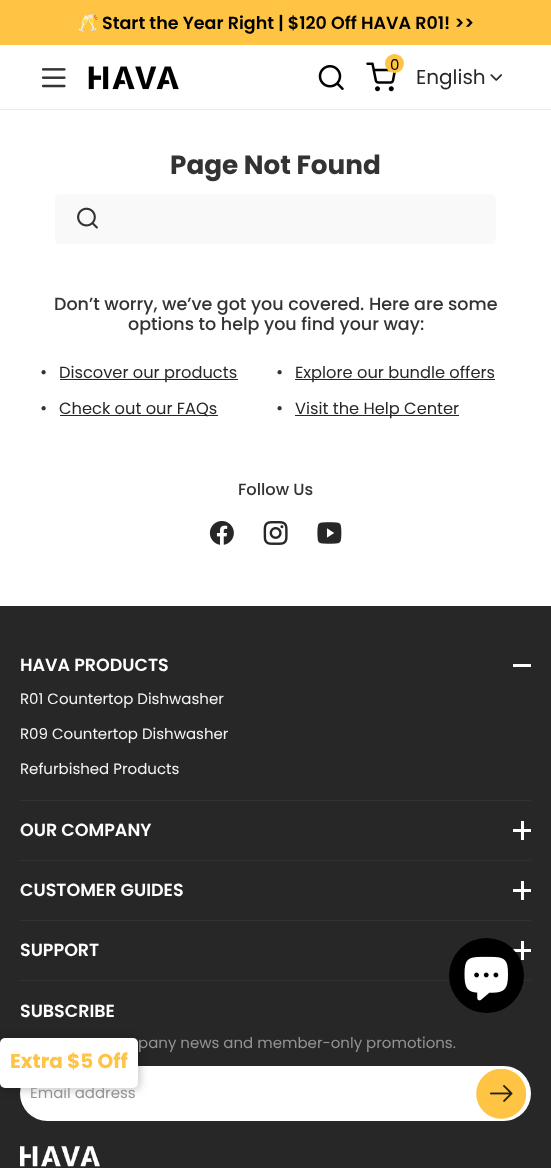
<?xml version="1.0" encoding="UTF-8"?>
<svg xmlns="http://www.w3.org/2000/svg" xmlns:xlink="http://www.w3.org/1999/xlink" width="551" height="1168">
  <rect width="100%" height="100%" fill="#ffffff" />
  <rect width="551" height="45" fill="#ffc443" />
  <rect y="109" width="551" height="1" fill="#eaeaea" />
  <image x="41" y="68" width="25" height="20" xlink:href="image1.png" />
  <image x="88" y="66" width="91" height="24" xlink:href="image2.png" />
  <image x="318" y="65" width="26" height="25" xlink:href="image3.png" />
  <image x="366" y="62" width="30" height="30" xlink:href="image4.png" />
  <circle cx="394.5" cy="63.5" r="9.5" fill="#ffc443" />
  <image x="490" y="74" width="12" height="7" xlink:href="image5.png" />
  <rect x="55" y="194" width="441" height="50" rx="5" fill="#f9f9f9" />
  <image x="77" y="207" width="21" height="22" xlink:href="image6.png" />
  <rect x="60" y="379" width="178" height="1" fill="#272727" />
  <rect x="295" y="379" width="200" height="1" fill="#272727" />
  <rect x="60" y="415" width="158" height="1" fill="#272727" />
  <rect x="295" y="415" width="164" height="1" fill="#272727" />
  <image x="209" y="521" width="25" height="24" xlink:href="image7.png" />
  <image x="263" y="521" width="25" height="24" xlink:href="image8.png" />
  <image x="317" y="522" width="25" height="22" xlink:href="image9.png" />
  <rect y="606" width="551" height="562" fill="#272727" />
  <rect x="20" y="800" width="511" height="1" fill="#323232" />
  <rect x="513" y="664" width="18" height="3" fill="#ffffff" />
  <rect x="20" y="860" width="511" height="1" fill="#323232" />
  <rect x="513" y="829" width="18" height="3" fill="#ffffff" />
  <rect x="521" y="821" width="3" height="19" fill="#ffffff" />
  <rect x="20" y="920" width="511" height="1" fill="#323232" />
  <rect x="513" y="889" width="18" height="3" fill="#ffffff" />
  <rect x="521" y="881" width="3" height="19" fill="#ffffff" />
  <rect x="20" y="980" width="511" height="1" fill="#323232" />
  <rect x="513" y="949" width="18" height="3" fill="#ffffff" />
  <rect x="521" y="941" width="3" height="19" fill="#ffffff" />
  <rect x="20" y="1066" width="511" height="55" rx="27.5" fill="#ffffff" />
  <image x="476" y="1069" width="50" height="50" xlink:href="image10.png" />
  <image x="20" y="1146" width="80" height="21" xlink:href="image11.png" />
  <circle cx="486.5" cy="975.5" r="37.5" fill="#000000" />
  <image x="464" y="956" width="44" height="45" xlink:href="image12.png" />
  <rect y="1038" width="140" height="52" rx="6" fill="#000000" fill-opacity="0.22" filter="blur(4.5px)" />
  <text x="77" y="29" style="font-family: Noto Color Emoji; font-size: 17.5px; font-weight: bold; fill: #000000">🥂</text>
  <text x="102" y="29" style="font-family: Poppins; font-size: 17.5px; font-weight: 600; fill: #000000">Start the Year Right | $120 Off HAVA R01! &gt;&gt;</text>
  <text x="390" y="70" style="font-family: Poppins; font-size: 15px; fill: #000000">0</text>
  <text x="416" y="84" style="font-family: Poppins; font-size: 20px; fill: #272727">English</text>
  <text x="170" y="174" style="font-family: Poppins; font-size: 26.25px; font-weight: bold; fill: #333333">Page Not Found</text>
  <text x="54" y="310" style="font-family: Poppins; font-size: 17.5px; font-weight: 500; fill: #333333">Don’t worry, we’ve got you covered. Here are some</text>
  <text x="128" y="330" style="font-family: Poppins; font-size: 17.5px; font-weight: 500; fill: #333333">options to help you find your way:</text>
  <text x="40" y="378" style="font-family: Poppins; font-size: 17.5px; fill: #333333">•</text>
  <text x="59" y="378" style="font-family: Poppins; font-size: 16.25px; fill: #272727">Discover our products</text>
  <text x="276" y="378" style="font-family: Poppins; font-size: 17.5px; fill: #333333">•</text>
  <text x="295" y="378" style="font-family: Poppins; font-size: 16.25px; fill: #272727">Explore our bundle offers</text>
  <text x="40" y="414" style="font-family: Poppins; font-size: 17.5px; fill: #333333">•</text>
  <text x="59" y="414" style="font-family: Poppins; font-size: 16.25px; fill: #272727">Check out our FAQs</text>
  <text x="276" y="414" style="font-family: Poppins; font-size: 17.5px; fill: #333333">•</text>
  <text x="295" y="414" style="font-family: Poppins; font-size: 16.25px; fill: #272727">Visit the Help Center</text>
  <text x="238" y="495" style="font-family: Poppins; font-size: 16.25px; font-weight: 500; fill: #333333">Follow Us</text>
  <text x="20" y="671" style="font-family: Poppins; font-size: 17.5px; font-weight: 600; fill: #ffffff">HAVA PRODUCTS</text>
  <text x="20" y="704" style="font-family: Poppins; font-size: 15px; fill: #f5f5f5">R01 Countertop Dishwasher</text>
  <text x="20" y="739" style="font-family: Poppins; font-size: 15px; fill: #f5f5f5">R09 Countertop Dishwasher</text>
  <text x="20" y="774" style="font-family: Poppins; font-size: 15px; fill: #f5f5f5">Refurbished Products</text>
  <text x="20" y="836" style="font-family: Poppins; font-size: 17.5px; font-weight: 600; fill: #ffffff">OUR COMPANY</text>
  <text x="20" y="896" style="font-family: Poppins; font-size: 17.5px; font-weight: 600; fill: #ffffff">CUSTOMER GUIDES</text>
  <text x="20" y="956" style="font-family: Poppins; font-size: 17.5px; font-weight: 600; fill: #ffffff">SUPPORT</text>
  <text x="20" y="1017" style="font-family: Poppins; font-size: 17.5px; font-weight: 600; fill: #ffffff">SUBSCRIBE</text>
  <text x="138" y="1048" style="font-family: Poppins; font-size: 15px; fill: #939393">pany news and member-only promotions.</text>
  <text x="30" y="1098" style="font-family: Poppins; font-size: 15px; fill: #939393">Email address</text>
  <rect y="1038" width="138" height="50" rx="5" fill="#ffffff" />
  <text x="10" y="1068" style="font-family: Poppins; font-size: 20px; font-weight: bold; fill: #ffc443">Extra $5 Off</text>
</svg>
